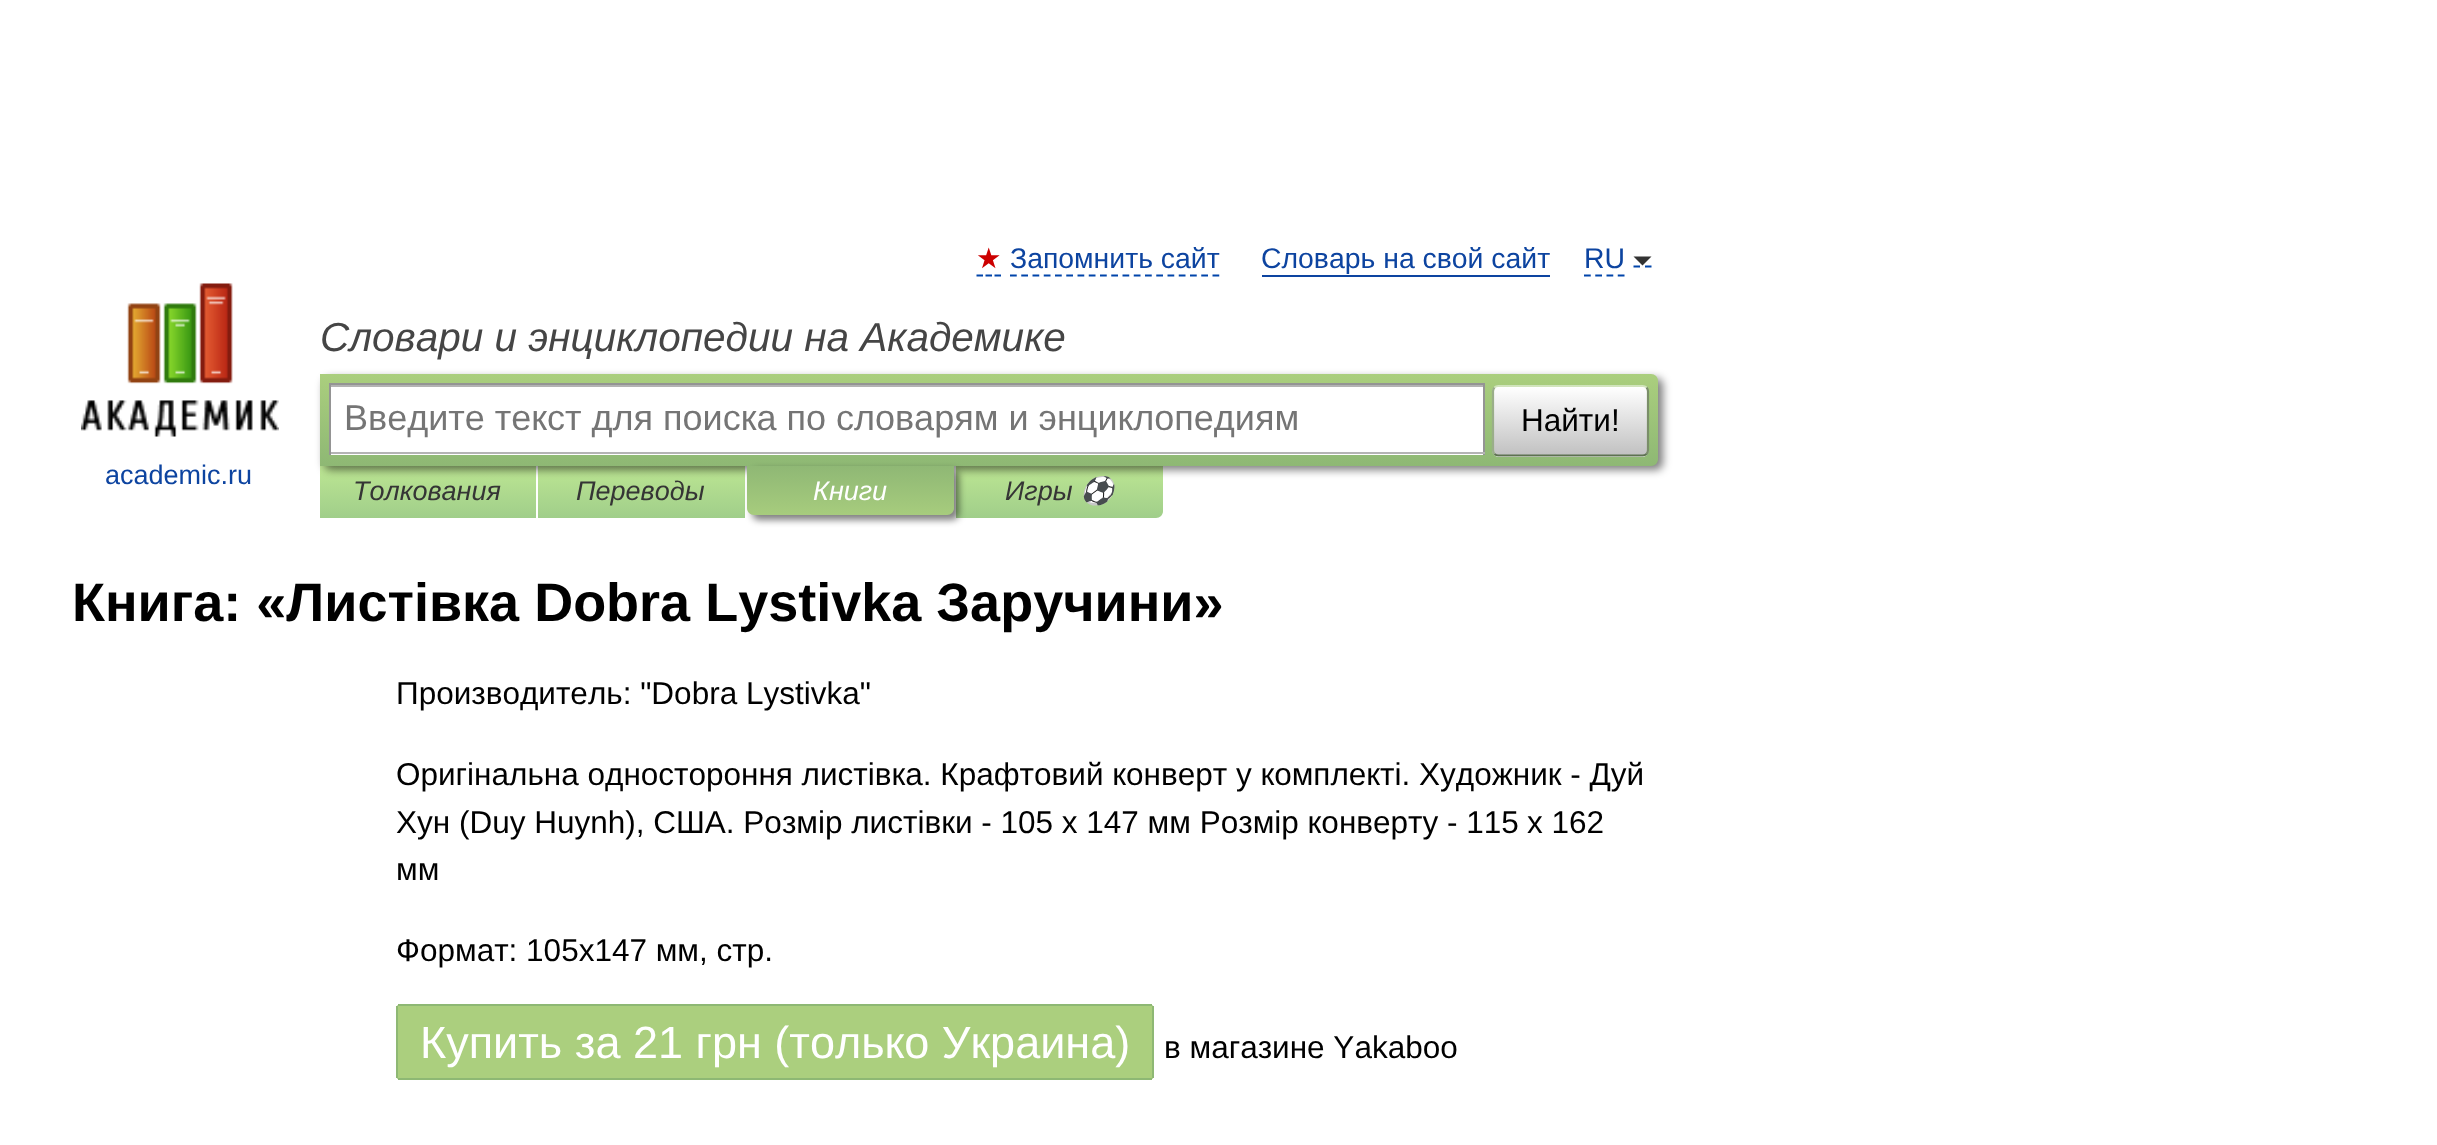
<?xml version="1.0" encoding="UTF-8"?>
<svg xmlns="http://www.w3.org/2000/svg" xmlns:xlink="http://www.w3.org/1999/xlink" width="2437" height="1145">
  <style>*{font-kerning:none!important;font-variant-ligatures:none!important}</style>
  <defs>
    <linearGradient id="g1" gradientUnits="userSpaceOnUse" x1="428" y1="466" x2="428" y2="518"><stop offset="0" stop-color="#bde693" /><stop offset="1" stop-color="#a0ce8a" /></linearGradient>
    <linearGradient id="g2" gradientUnits="userSpaceOnUse" x1="641" y1="466" x2="641" y2="518"><stop offset="0" stop-color="#bde693" /><stop offset="1" stop-color="#a0ce8a" /></linearGradient>
    <linearGradient id="g3" gradientUnits="userSpaceOnUse" x1="1060" y1="466" x2="1060" y2="518"><stop offset="0" stop-color="#bde693" /><stop offset="1" stop-color="#a0ce8a" /></linearGradient>
    <linearGradient id="g4" gradientUnits="userSpaceOnUse" x1="989" y1="373" x2="989" y2="466"><stop offset="0" stop-color="#abcf7e" /><stop offset="1" stop-color="#8eb874" /></linearGradient>
    <clipPath id="clip1"><rect x="1492" y="385" width="157" height="72" rx="7" /></clipPath>
    <linearGradient id="g5" gradientUnits="userSpaceOnUse" x1="1571" y1="387" x2="1571" y2="455"><stop offset="0" stop-color="#ffffff" /><stop offset="1" stop-color="#c1c1c1" /></linearGradient>
    <linearGradient id="g6" gradientUnits="userSpaceOnUse" x1="1571" y1="455" x2="1571" y2="522"><stop offset="0" stop-color="#ffffff" /><stop offset="1" stop-color="#c1c1c1" /></linearGradient>
    <linearGradient id="g7" gradientUnits="userSpaceOnUse" x1="851" y1="466" x2="851" y2="515"><stop offset="0" stop-color="#8fb875" /><stop offset="1" stop-color="#a7cc7d" /></linearGradient>
  </defs>
  <rect width="100%" height="100%" fill="#ffffff" />
  <path d="M 976.5 275.5 h 6.5 m 2.5 0 h 6.5 m 2.5 0 h 6.5" fill="none" stroke="#0044aa" stroke-width="2.2" />
  <path d="M 1010 275.5 h 209.5" fill="none" stroke="#0044aa" stroke-width="2.2" stroke-dasharray="6.75 4.5" />
  <rect x="1262" y="275" width="288" height="2" fill="#0d44a0" />
  <path d="M 1584 275.5 h 40.5" fill="none" stroke="#0044aa" stroke-width="2.2" stroke-dasharray="6.75 4.5" />
  <path d="M 1633.5 266.5 h 6.5 m 5 0 h 6.5" fill="none" stroke="#0044aa" stroke-width="2.2" />
  <path d="M 1633.5 256.5 h 18 l -9 9 z" fill="#333333" />
  <rect x="320" y="466" width="216" height="52" fill="url(#g1)" />
  <rect x="538" y="466" width="207" height="52" fill="url(#g2)" />
  <path d="M 956 466 h 207 v 45 c 0 4 -3 7 -7 7 h -200 z" fill="url(#g3)" />
  <rect x="324" y="378" width="1339" height="92" rx="7" fill="#000000" fill-opacity="0.5" filter="blur(4.5px)" />
  <path d="M 320 374 h 1331 c 4 0 7 3 7 7 v 78 c 0 4 -3 7 -7 7 h -1331 z" fill="url(#g4)" />
  <rect x="331" y="387" width="1152" height="68" fill="#ffffff" />
  <rect x="331" y="385" width="1152" height="2" fill="#b3b3b3" />
  <rect x="329" y="383" width="1156" height="2" fill="#949494" />
  <rect x="1483" y="383" width="2" height="72" fill="#949494" />
  <rect x="329" y="452" width="1156" height="2" fill="#b4b4b4" />
  <rect x="329" y="383" width="2" height="72" fill="#949494" />
  <g clip-path="url(#clip1)">
    <rect x="1492" y="387" width="157" height="68" fill="url(#g5)" />
    <rect x="1492" y="455" width="157" height="2" fill="url(#g6)" />
  </g>
  <path d="M 1494.5 387.5 c 1 -1 2.5 -1.5 4 -1.5 h 144 c 1.5 0 3 0.5 4 1.5" fill="none" stroke="#d1e4bc" stroke-width="2.2" />
  <path d="M 1646.5 387.5 c 1 1 1.5 2.5 1.5 4 v 58.5 c 0 1.5 -0.5 3 -1.5 4" fill="none" stroke="#7a8e69" stroke-width="2.2" />
  <path d="M 1646.5 454 c -1 1 -2.5 1.5 -4 1.5 h -144 c -1.5 0 -3 -0.5 -4 -1.5" fill="none" stroke="#5d7250" stroke-width="2.2" />
  <path d="M 1494.5 454 c -1 -1 -1.5 -2.5 -1.5 -4 v -58.5 c 0 -1.5 0.5 -3 1.5 -4" fill="none" stroke="#9aae89" stroke-width="2.2" />
  <image x="81" y="283" width="198" height="154" xlink:href="image1.png" />
  <rect x="752" y="470" width="207" height="50" rx="7" fill="#000000" fill-opacity="0.5" filter="blur(3.5px)" />
  <path d="M 747 466 h 207 v 42 c 0 4 -3 7 -7 7 h -193 c -4 0 -7 -3 -7 -7 z" fill="url(#g7)" />
  <path d="M 401 1004 h 231 v 76 h -231 c -3 0 -5 -2 -5 -5 v -66 c 0 -3 2 -5 5 -5 z" fill="#abcf7e" />
  <rect x="398" y="1004" width="297" height="2" fill="#8eb874" />
  <rect x="398" y="1078" width="297" height="2" fill="#8eb874" />
  <rect x="396" y="1006" width="2" height="72" fill="#8eb874" />
  <rect x="632" y="1006" width="63" height="72" fill="#abcf7e" />
  <path d="M 695 1004 h 454 c 3 0 5 2 5 5 v 66 c 0 3 -2 5 -5 5 h -454 z" fill="#abcf7e" />
  <rect x="695" y="1004" width="457" height="2" fill="#8eb874" />
  <rect x="1152" y="1006" width="2" height="72" fill="#8eb874" />
  <rect x="695" y="1078" width="457" height="2" fill="#8eb874" />
  <text x="976" y="268" style="font-family: DejaVu Sans; font-size: 28.4px; fill: #cc0000">★</text>
  <text x="1010" y="268" style="font-family: Liberation Sans; font-size: 28.4px; fill: #0d44a0">Запомнить сайт</text>
  <text x="1261" y="268" style="font-family: Liberation Sans; font-size: 28.4px; fill: #0d44a0">Словарь на свой сайт</text>
  <text x="1584" y="268" style="font-family: Liberation Sans; font-size: 28.4px; fill: #0d44a0">RU</text>
  <text x="320" y="351" style="font-family: Liberation Sans; font-size: 40.5px; font-style: italic; fill: #454545">Словари и энциклопедии на Академике</text>
  <text x="344" y="430" style="font-family: Liberation Sans; font-size: 36px; fill: #757575">Введите текст для поиска по словарям и энциклопедиям</text>
  <text x="1521" y="431" style="font-family: Liberation Sans; font-size: 31.5px; fill: #000000">Найти!</text>
  <text x="105" y="484" style="font-family: Liberation Sans; font-size: 27px; fill: #0d44a0">academic.ru</text>
  <text x="353" y="500" style="font-family: Liberation Sans; font-size: 27px; font-style: italic; fill: #353535">Толкования</text>
  <text x="576" y="500" style="font-family: Liberation Sans; font-size: 27px; font-style: italic; fill: #353535">Переводы</text>
  <text x="813" y="500" style="font-family: Liberation Sans; font-size: 27px; font-style: italic; fill: #ffffff">Книги</text>
  <text x="1005" y="500" style="font-family: Liberation Sans; font-size: 27px; font-style: italic; fill: #353535">Игры</text>
  <text x="1080" y="500" style="font-family: Noto Color Emoji; font-size: 27px; font-style: italic; fill: #353535">⚽</text>
  <text x="72" y="621" style="font-family: Liberation Sans; font-size: 54px; font-weight: bold; fill: #000000">Книга: «Листівка Dobra Lystivka Заручини»</text>
  <text x="396" y="704" style="font-family: Liberation Sans; font-size: 31.5px; fill: #000000">Производитель: "Dobra Lystivka"</text>
  <text x="396" y="785" style="font-family: Liberation Sans; font-size: 31.5px; fill: #000000">Оригінальна одностороння листівка. Крафтовий конверт у комплекті. Художник - Дуй</text>
  <text x="396" y="833" style="font-family: Liberation Sans; font-size: 31.5px; fill: #000000">Хун (Duy Huynh), США. Розмір листівки - 105 х 147 мм Розмір конверту - 115</text>
  <text x="1527" y="833" style="font-family: Liberation Sans; font-size: 31.5px; fill: #000000">х 162</text>
  <text x="396" y="880" style="font-family: Liberation Sans; font-size: 31.5px; fill: #000000">мм</text>
  <text x="396" y="961" style="font-family: Liberation Sans; font-size: 31.5px; fill: #000000">Формат: 105х147 мм, стр.</text>
  <text x="420" y="1058" style="font-family: Liberation Sans; font-size: 45px; fill: #ffffff">Купить за 21 грн (только Украина)</text>
  <text x="1164" y="1058" style="font-family: Liberation Sans; font-size: 31.5px; fill: #000000">в магазине Yakaboo</text>
</svg>
